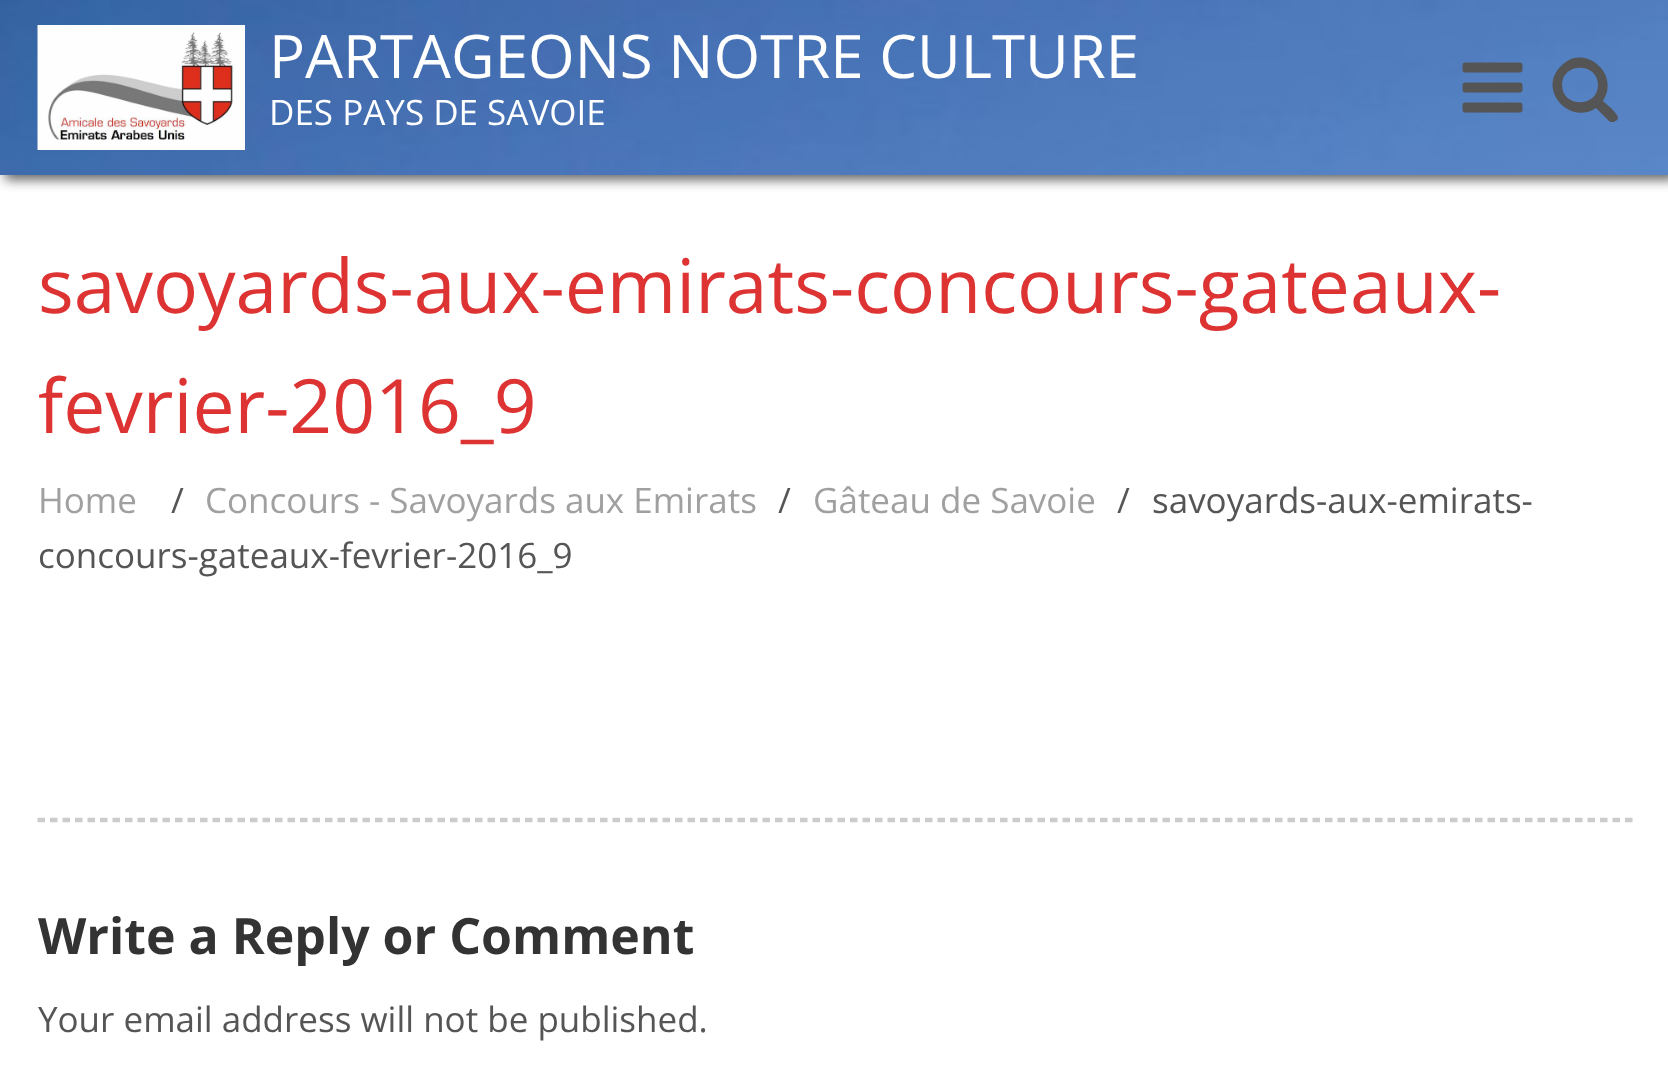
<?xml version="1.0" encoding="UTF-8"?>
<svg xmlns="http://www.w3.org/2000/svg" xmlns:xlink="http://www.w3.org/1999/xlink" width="1668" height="1089">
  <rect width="100%" height="100%" fill="#ffffff" />
  <rect x="5" y="5" width="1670" height="175" fill="#666666" filter="blur(6px)" />
  <image x="0" y="0" width="1668" height="175" xlink:href="image1.png" />
  <image x="37" y="25" width="208" height="125" xlink:href="image2.png" />
  <image x="1462" y="62" width="61" height="51" xlink:href="image3.png" />
  <path d="M 1598 85 c 0 23 -36 23 -36 0 c 0 -23 36 -23 36 0 z m 20 33 c 0 -5 -12 -14 -15 -17 c 18 -27 -19 -59 -42 -35 c -24 23 8 60 35 42 l 13 13 c 1 1 2 1 3 1 c 3 0 6 -2 6 -4 z" fill="#555555" />
  <path d="M 37.5 819 h 1595" fill="none" stroke="#cccccc" stroke-width="2.5" stroke-dasharray="7.5 5" />
  <path d="M 37.5 821 h 1595" fill="none" stroke="#cccccc" stroke-width="2.5" stroke-dasharray="7.5 5" />
  <text x="269" y="78" style="font-family: Open Sans; font-size: 60px; fill: #ffffff">PARTAGEONS NOTRE CULTURE</text>
  <text x="269" y="125" style="font-family: Open Sans; font-size: 35px; fill: #ffffff">DES PAYS DE SAVOIE</text>
  <text x="38" y="313" style="font-family: Open Sans; font-size: 75px; fill: #dd3333">savoyards-aux-emirats-concours-gateaux-</text>
  <text x="38" y="433" style="font-family: Open Sans; font-size: 75px; fill: #dd3333">fevrier-2016_9</text>
  <text x="38" y="513" style="font-family: Open Sans; font-size: 35px; fill: #a0a0a0">Home</text>
  <text x="171" y="513" style="font-family: Open Sans; font-size: 35px; fill: #555555">/</text>
  <text x="205" y="513" style="font-family: Open Sans; font-size: 35px; fill: #a0a0a0">Concours - Savoyards aux Emirats</text>
  <text x="778" y="513" style="font-family: Open Sans; font-size: 35px; fill: #555555">/</text>
  <text x="813" y="513" style="font-family: Open Sans; font-size: 35px; fill: #a0a0a0">Gâteau de Savoie</text>
  <text x="1117" y="513" style="font-family: Open Sans; font-size: 35px; fill: #555555">/</text>
  <text x="1152" y="513" style="font-family: Open Sans; font-size: 35px; fill: #555555">savoyards-aux-emirats-</text>
  <text x="38" y="568" style="font-family: Open Sans; font-size: 35px; fill: #555555">concours-gateaux-fevrier-2016_9</text>
  <text x="38" y="954" style="font-family: Open Sans; font-size: 50px; font-weight: bold; fill: #333333">Write a Reply or Comment</text>
  <text x="38" y="1032" style="font-family: Open Sans; font-size: 35px; fill: #555555">Your email address will not be published.</text>
</svg>
